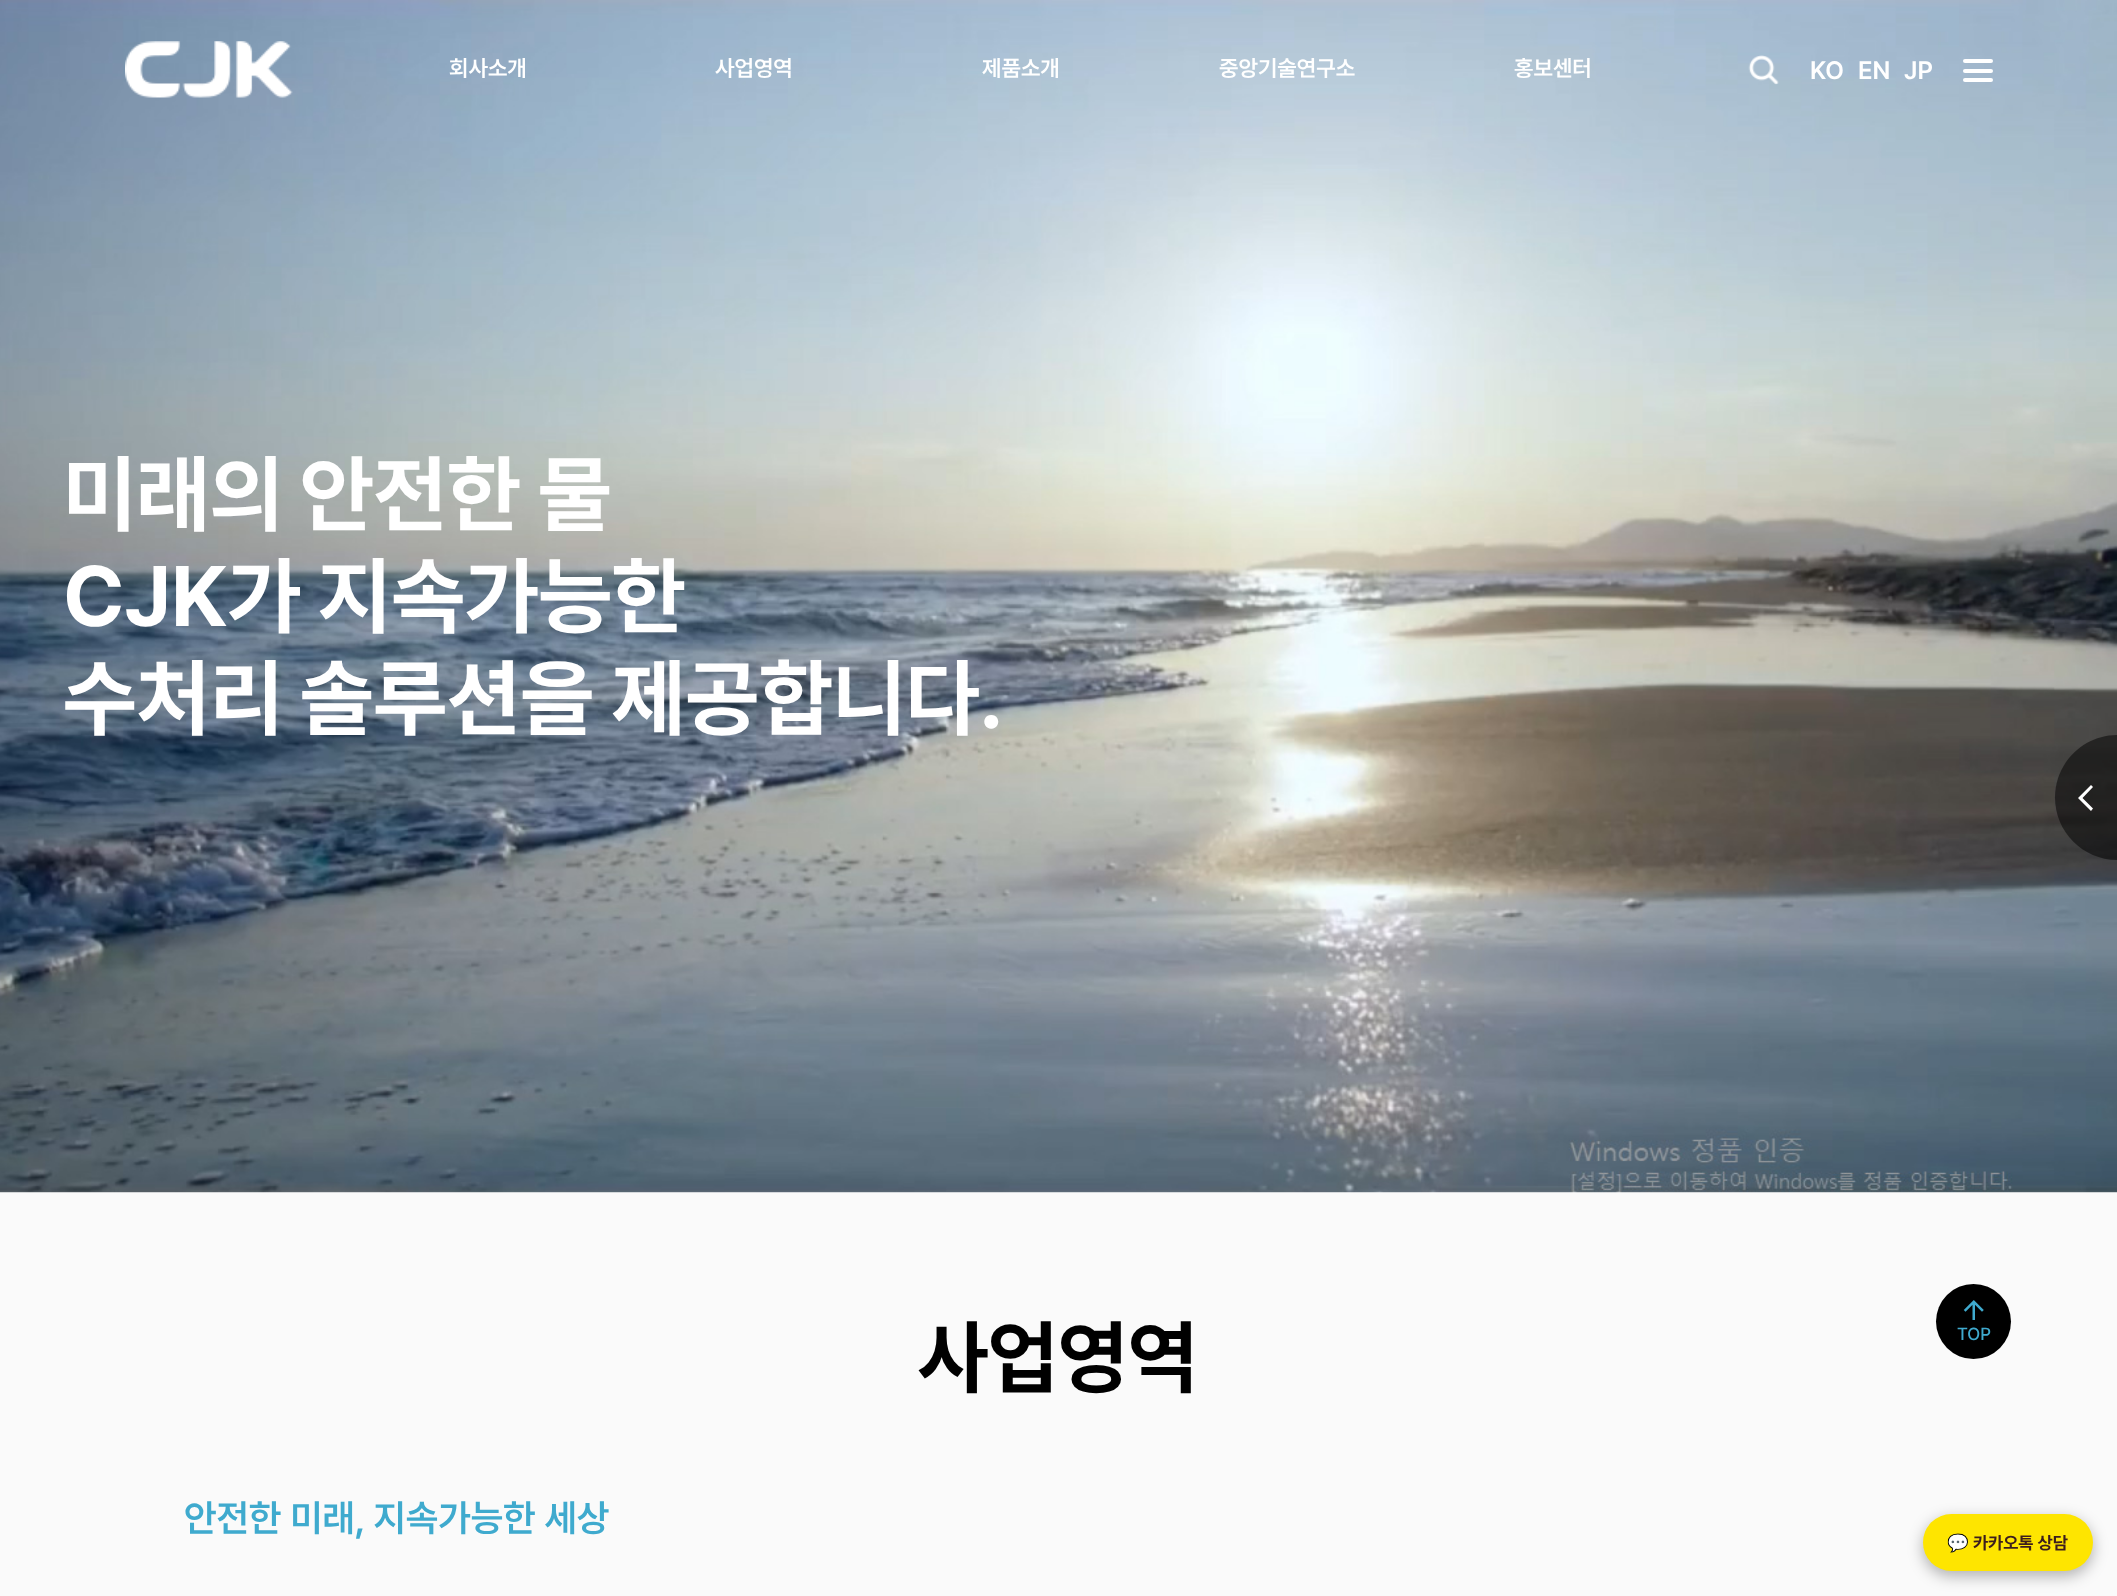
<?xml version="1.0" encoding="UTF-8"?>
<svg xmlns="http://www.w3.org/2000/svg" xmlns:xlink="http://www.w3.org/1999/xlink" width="2117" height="1596">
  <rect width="100%" height="100%" fill="#ffffff" />
  <image x="0" y="0" width="2117" height="1193" xlink:href="image3.png" />
  <image x="125" y="41" width="168" height="57" xlink:href="image1.png" />
  <image x="1748" y="55" width="31" height="30" xlink:href="image2.png" />
  <rect x="1963" y="59" width="30" height="4" rx="2" fill="#ffffff" />
  <rect x="1963" y="69" width="30" height="4" rx="2" fill="#ffffff" />
  <rect x="1963" y="78" width="30" height="4" rx="2" fill="#ffffff" />
  <path d="M 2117.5 735 h 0.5 v 125 h -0.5 c -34.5 0 -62.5 -28 -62.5 -62.5 c 0 -34.5 28 -62.5 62.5 -62.5 z" fill="#000000" fill-opacity="0.5" />
  <path d="M 2091 785 l 2 2 l -10.5 11 l 10.5 10.5 l -2 2.5 l -13 -13 z" fill="#ffffff" />
  <rect y="1193" width="2117" height="403" fill="#fafafa" />
  <circle cx="1973.5" cy="1321.5" r="37.5" fill="#000000" />
  <image x="1963" y="1300" width="21" height="20" xlink:href="image4.png" />
  <rect x="1923" y="1519" width="170" height="57" rx="28.5" fill="#000000" fill-opacity="0.3" filter="blur(7.5px)" />
  <rect x="1923" y="1514" width="170" height="57" rx="28.5" fill="#fee500" />
  <text x="449" y="76" style="font-family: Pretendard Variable; font-size: 22.5px; font-weight: 600; fill: #ffffff">회사소개</text>
  <text x="715" y="76" style="font-family: Pretendard Variable; font-size: 22.5px; font-weight: 600; fill: #ffffff">사업영역</text>
  <text x="982" y="76" style="font-family: Pretendard Variable; font-size: 22.5px; font-weight: 600; fill: #ffffff">제품소개</text>
  <text x="1219" y="76" style="font-family: Pretendard Variable; font-size: 22.5px; font-weight: 600; fill: #ffffff">중앙기술연구소</text>
  <text x="1514" y="76" style="font-family: Pretendard Variable; font-size: 22.5px; font-weight: 600; fill: #ffffff">홍보센터</text>
  <text x="1810" y="79" style="font-family: Pretendard Variable; font-size: 25px; font-weight: 600; fill: #ffffff">KO</text>
  <text x="1858" y="79" style="font-family: Pretendard Variable; font-size: 25px; font-weight: 600; fill: #ffffff">EN</text>
  <text x="1904" y="79" style="font-family: Pretendard Variable; font-size: 25px; font-weight: 600; fill: #ffffff">JP</text>
  <text x="63" y="524" style="font-family: Pretendard Variable; font-size: 85px; font-weight: bold; fill: #ffffff">미래의</text>
  <text x="300" y="524" style="font-family: Pretendard Variable; font-size: 85px; font-weight: bold; fill: #ffffff">안전한</text>
  <text x="538" y="524" style="font-family: Pretendard Variable; font-size: 85px; font-weight: bold; fill: #ffffff">물</text>
  <text x="63" y="626" style="font-family: Pretendard Variable; font-size: 85px; font-weight: bold; fill: #ffffff">CJK가</text>
  <text x="318" y="626" style="font-family: Pretendard Variable; font-size: 85px; font-weight: bold; fill: #ffffff">지속가능한</text>
  <text x="63" y="728" style="font-family: Pretendard Variable; font-size: 85px; font-weight: bold; fill: #ffffff">수처리</text>
  <text x="300" y="728" style="font-family: Pretendard Variable; font-size: 85px; font-weight: bold; fill: #ffffff">솔루션을</text>
  <text x="612" y="728" style="font-family: Pretendard Variable; font-size: 85px; font-weight: bold; fill: #ffffff">제공합니다.</text>
  <text x="918" y="1386" style="font-family: Pretendard Variable; font-size: 81px; font-weight: bold; fill: #000000">사업영역</text>
  <text x="184" y="1531" style="font-family: Pretendard Variable; font-size: 37.5px; font-weight: 600; fill: #3faace">안전한 미래, 지속가능한 세상</text>
  <text x="1957" y="1340" style="font-family: Pretendard Variable; font-size: 17.5px; font-weight: 500; fill: #3faace">TOP</text>
  <text x="1947" y="1549" style="font-family: Noto Color Emoji; font-size: 17.5px; font-weight: bold; fill: #3c1e1e">💬</text>
  <text x="1973" y="1549" style="font-family: Pretendard Variable; font-size: 17.5px; font-weight: bold; fill: #3c1e1e">카카오톡 상담</text>
</svg>
